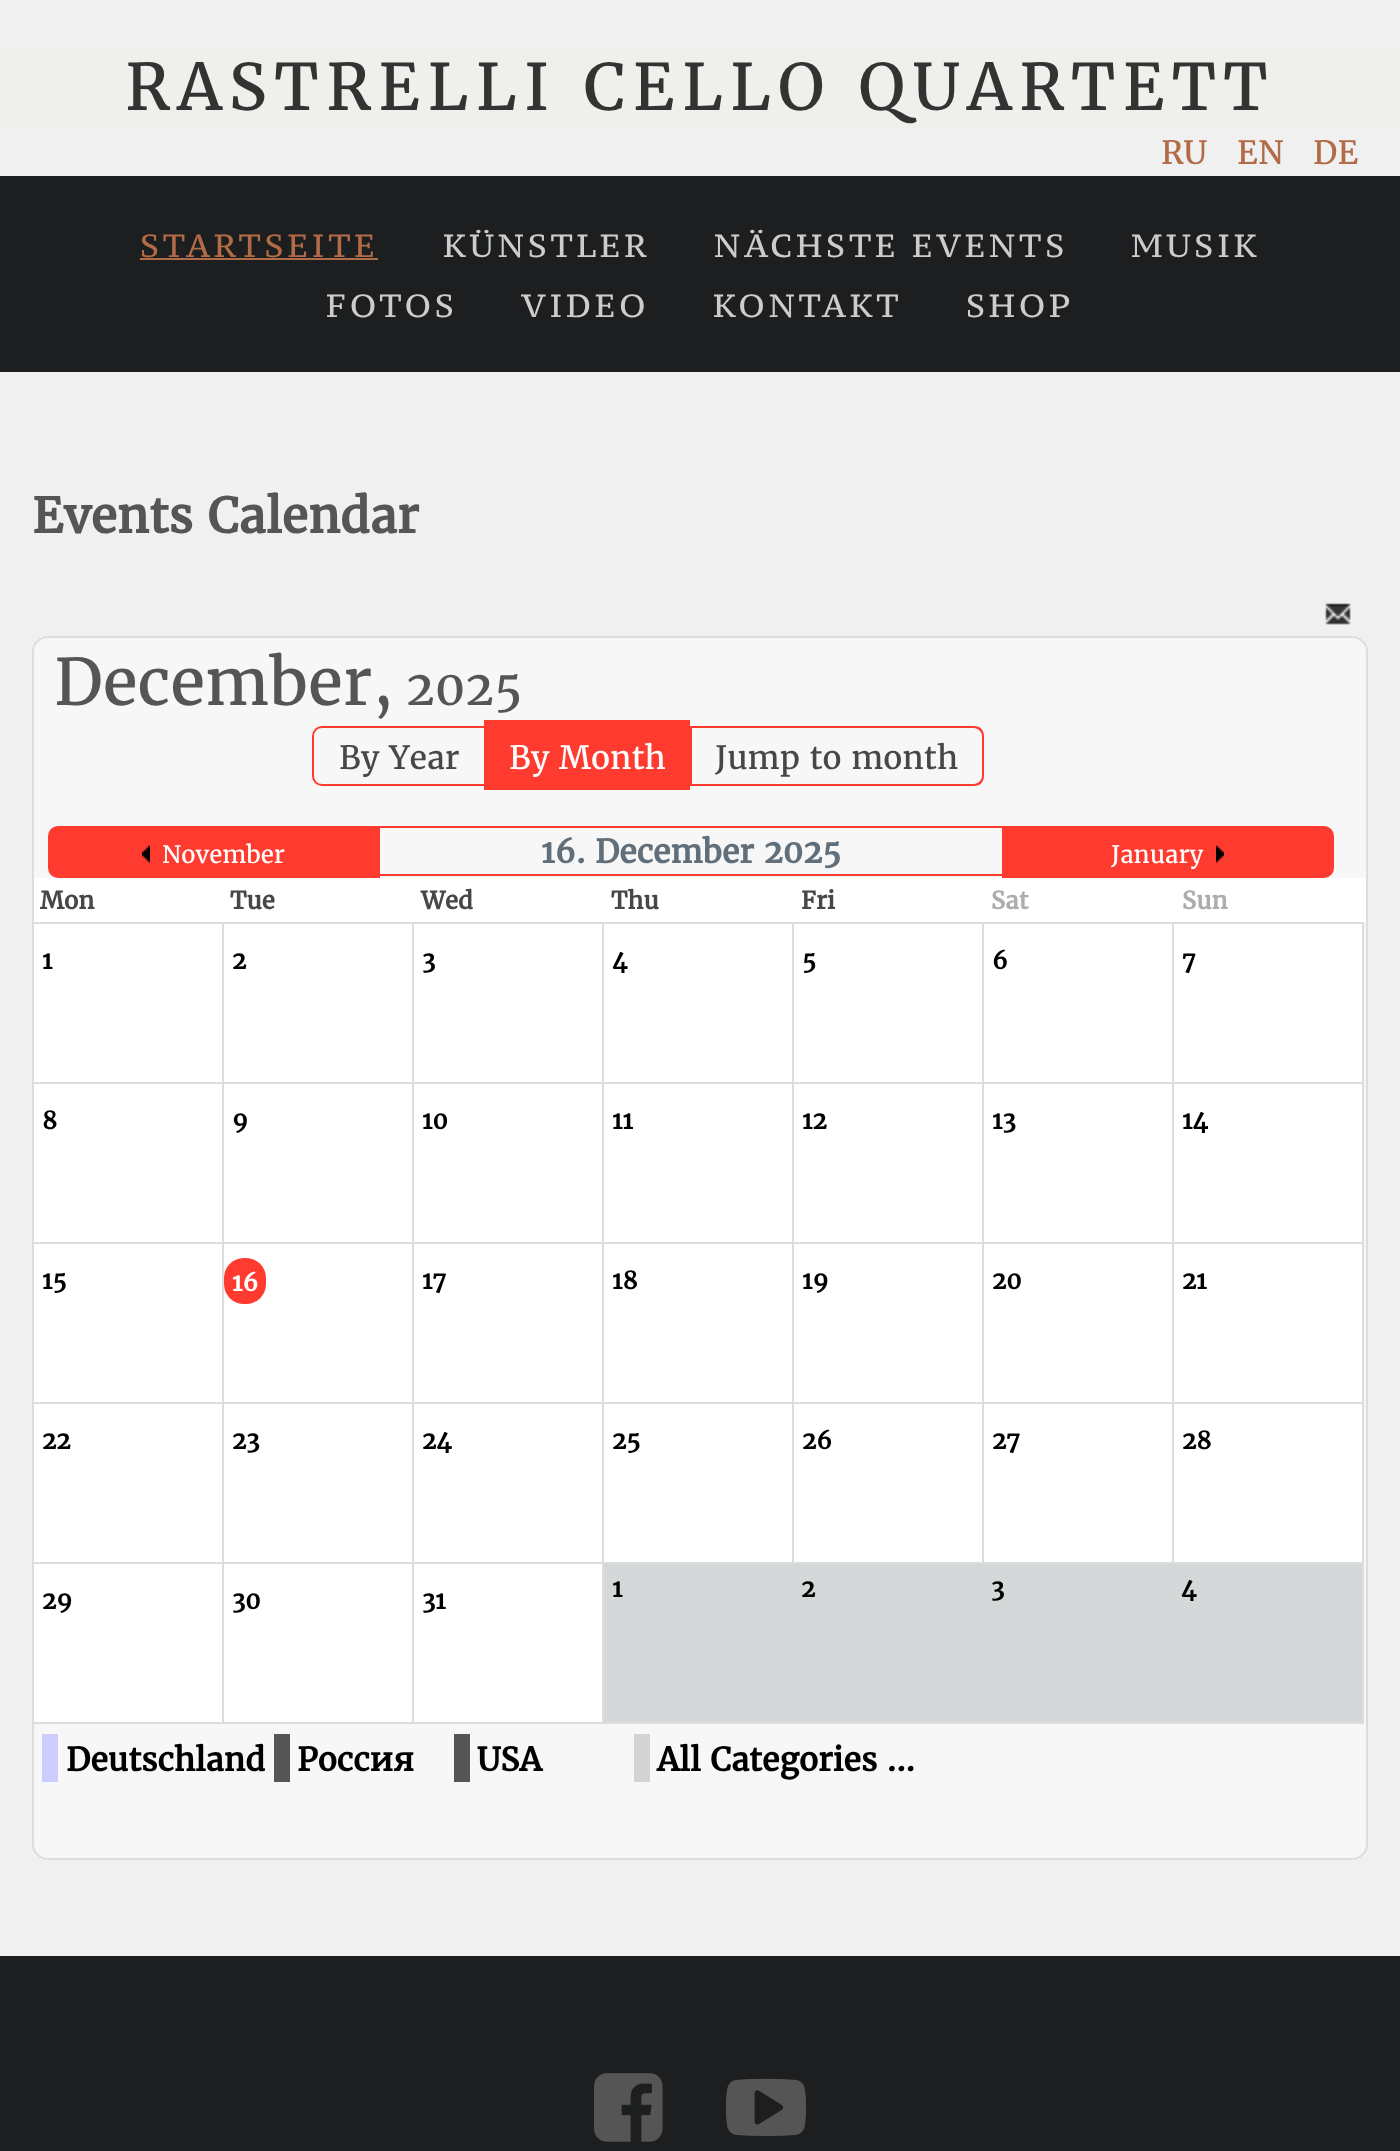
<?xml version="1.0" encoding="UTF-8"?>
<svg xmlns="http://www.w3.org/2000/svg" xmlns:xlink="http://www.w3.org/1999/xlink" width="1400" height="2151">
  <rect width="100%" height="100%" fill="#f0f0f0" />
  <rect y="48" width="1400" height="80" fill="#efefec" />
  <rect y="176" width="1400" height="196" fill="#1d1e20" />
  <rect x="140" y="258" width="238" height="2" fill="#b26b47" />
  <image x="1325" y="603" width="26" height="22" xlink:href="image1.png" />
  <rect x="33" y="637" width="1334" height="1222" rx="15" fill="#f7f7f7" stroke="#dddddd" stroke-width="2" />
  <path d="M 322 727 h 163 v 58 h -163 c -5 0 -9 -4 -9 -9 v -40 c 0 -5 4 -9 9 -9 z" fill="none" stroke="#ff3b30" stroke-width="2" />
  <rect x="690" y="726" width="2" height="60" fill="#ff3b30" />
  <rect x="484" y="720" width="206" height="70" fill="#ff3b30" />
  <path d="M 692 726 h 282 c 6 0 10 4 10 10 v 40 c 0 6 -4 10 -10 10 h -282 z m 0 2 h 282 c 4 0 8 4 8 8 v 40 c 0 4 -4 8 -8 8 h -282 z" fill="#ff3b30" fill-rule="evenodd" />
  <path d="M 58 827 h 321 v 50 h -321 c -5 0 -9 -4 -9 -9 v -32 c 0 -5 4 -9 9 -9 z" fill="#ff3b30" stroke="#ff3b30" stroke-width="2" />
  <image x="142" y="845" width="8" height="18" xlink:href="image2.png" />
  <rect x="380" y="826" width="622" height="2" fill="#ff3b30" />
  <rect x="380" y="874" width="622" height="2" fill="#ff3b30" />
  <path d="M 1003 827 h 321 c 5 0 9 4 9 9 v 32 c 0 5 -4 9 -9 9 h -321 z" fill="#ff3b30" stroke="#ff3b30" stroke-width="2" />
  <image x="1216" y="845" width="8" height="18" xlink:href="image3.png" />
  <rect x="34" y="878" width="1332" height="44" fill="#ffffff" />
  <rect x="32" y="922" width="1332" height="2" fill="#dddddd" />
  <rect x="1362" y="922" width="2" height="802" fill="#dddddd" />
  <rect x="32" y="1722" width="1332" height="2" fill="#dddddd" />
  <rect x="34" y="924" width="188" height="158" fill="#ffffff" />
  <rect x="224" y="924" width="188" height="158" fill="#ffffff" />
  <rect x="1172" y="1082" width="192" height="2" fill="#dddddd" />
  <rect x="1172" y="1242" width="192" height="2" fill="#dddddd" />
  <rect x="1172" y="1402" width="192" height="2" fill="#dddddd" />
  <rect x="1172" y="1562" width="192" height="2" fill="#dddddd" />
  <rect x="1172" y="1402" width="2" height="162" fill="#dddddd" />
  <rect x="982" y="1402" width="192" height="2" fill="#dddddd" />
  <rect x="1172" y="1242" width="2" height="162" fill="#dddddd" />
  <rect x="982" y="1242" width="192" height="2" fill="#dddddd" />
  <rect x="1172" y="1082" width="2" height="162" fill="#dddddd" />
  <rect x="982" y="1082" width="192" height="2" fill="#dddddd" />
  <rect x="982" y="1562" width="192" height="2" fill="#dddddd" />
  <rect x="982" y="1402" width="2" height="162" fill="#dddddd" />
  <rect x="792" y="1402" width="192" height="2" fill="#dddddd" />
  <rect x="982" y="1242" width="2" height="162" fill="#dddddd" />
  <rect x="792" y="1242" width="192" height="2" fill="#dddddd" />
  <rect x="982" y="1082" width="2" height="162" fill="#dddddd" />
  <rect x="792" y="1082" width="192" height="2" fill="#dddddd" />
  <rect x="792" y="1562" width="192" height="2" fill="#dddddd" />
  <rect x="792" y="1402" width="2" height="162" fill="#dddddd" />
  <rect x="602" y="1402" width="192" height="2" fill="#dddddd" />
  <rect x="792" y="1242" width="2" height="162" fill="#dddddd" />
  <rect x="602" y="1242" width="192" height="2" fill="#dddddd" />
  <rect x="792" y="1082" width="2" height="162" fill="#dddddd" />
  <rect x="602" y="1082" width="192" height="2" fill="#dddddd" />
  <rect x="412" y="1562" width="192" height="2" fill="#dddddd" />
  <rect x="602" y="1562" width="2" height="162" fill="#dddddd" />
  <rect x="602" y="1562" width="192" height="2" fill="#dddddd" />
  <rect x="602" y="1402" width="2" height="162" fill="#dddddd" />
  <rect x="412" y="1402" width="192" height="2" fill="#dddddd" />
  <rect x="602" y="1242" width="2" height="162" fill="#dddddd" />
  <rect x="412" y="1242" width="192" height="2" fill="#dddddd" />
  <rect x="602" y="1082" width="2" height="162" fill="#dddddd" />
  <rect x="412" y="1082" width="192" height="2" fill="#dddddd" />
  <rect x="412" y="1562" width="2" height="162" fill="#dddddd" />
  <rect x="222" y="1562" width="192" height="2" fill="#dddddd" />
  <rect x="412" y="1402" width="2" height="162" fill="#dddddd" />
  <rect x="222" y="1402" width="192" height="2" fill="#dddddd" />
  <rect x="412" y="1242" width="2" height="162" fill="#dddddd" />
  <rect x="412" y="1082" width="2" height="162" fill="#dddddd" />
  <rect x="222" y="1082" width="192" height="2" fill="#dddddd" />
  <rect x="32" y="1242" width="192" height="2" fill="#dddddd" />
  <rect x="222" y="1562" width="2" height="162" fill="#dddddd" />
  <rect x="32" y="1562" width="192" height="2" fill="#dddddd" />
  <rect x="222" y="1402" width="2" height="162" fill="#dddddd" />
  <rect x="32" y="1402" width="192" height="2" fill="#dddddd" />
  <rect x="222" y="1242" width="2" height="162" fill="#dddddd" />
  <rect x="222" y="1242" width="192" height="2" fill="#dddddd" />
  <rect x="222" y="1082" width="2" height="162" fill="#dddddd" />
  <rect x="32" y="1082" width="192" height="2" fill="#dddddd" />
  <rect x="222" y="922" width="2" height="162" fill="#dddddd" />
  <rect x="414" y="924" width="188" height="158" fill="#ffffff" />
  <rect x="412" y="922" width="2" height="162" fill="#dddddd" />
  <rect x="604" y="924" width="188" height="158" fill="#ffffff" />
  <rect x="602" y="922" width="2" height="162" fill="#dddddd" />
  <rect x="794" y="924" width="188" height="158" fill="#ffffff" />
  <rect x="792" y="922" width="2" height="162" fill="#dddddd" />
  <rect x="984" y="924" width="188" height="158" fill="#ffffff" />
  <rect x="982" y="922" width="2" height="162" fill="#dddddd" />
  <rect x="1174" y="924" width="188" height="158" fill="#ffffff" />
  <rect x="1172" y="922" width="2" height="162" fill="#dddddd" />
  <rect x="34" y="1084" width="188" height="158" fill="#ffffff" />
  <rect x="224" y="1084" width="188" height="158" fill="#ffffff" />
  <rect x="414" y="1084" width="188" height="158" fill="#ffffff" />
  <rect x="604" y="1084" width="188" height="158" fill="#ffffff" />
  <rect x="794" y="1084" width="188" height="158" fill="#ffffff" />
  <rect x="984" y="1084" width="188" height="158" fill="#ffffff" />
  <rect x="1174" y="1084" width="188" height="158" fill="#ffffff" />
  <rect x="34" y="1244" width="188" height="158" fill="#ffffff" />
  <rect x="224" y="1244" width="188" height="158" fill="#ffffff" />
  <rect x="224" y="1258" width="42" height="46" rx="20" fill="#ff3b30" />
  <rect x="414" y="1244" width="188" height="158" fill="#ffffff" />
  <rect x="604" y="1244" width="188" height="158" fill="#ffffff" />
  <rect x="794" y="1244" width="188" height="158" fill="#ffffff" />
  <rect x="984" y="1244" width="188" height="158" fill="#ffffff" />
  <rect x="1174" y="1244" width="188" height="158" fill="#ffffff" />
  <rect x="34" y="1404" width="188" height="158" fill="#ffffff" />
  <rect x="224" y="1404" width="188" height="158" fill="#ffffff" />
  <rect x="414" y="1404" width="188" height="158" fill="#ffffff" />
  <rect x="604" y="1404" width="188" height="158" fill="#ffffff" />
  <rect x="794" y="1404" width="188" height="158" fill="#ffffff" />
  <rect x="984" y="1404" width="188" height="158" fill="#ffffff" />
  <rect x="1174" y="1404" width="188" height="158" fill="#ffffff" />
  <rect x="604" y="1564" width="758" height="158" fill="#d4d8d8" />
  <rect x="34" y="1564" width="188" height="158" fill="#ffffff" />
  <rect x="224" y="1564" width="188" height="158" fill="#ffffff" />
  <rect x="414" y="1564" width="188" height="158" fill="#ffffff" />
  <rect x="42" y="1734" width="16" height="48" fill="#ccccff" />
  <rect x="274" y="1734" width="16" height="48" fill="#555555" />
  <rect x="454" y="1734" width="16" height="48" fill="#555555" />
  <rect x="634" y="1734" width="16" height="48" fill="#d3d3d3" />
  <rect y="1956" width="1400" height="195" fill="#1d1e20" />
  <image x="594" y="2073" width="69" height="69" xlink:href="image4.png" />
  <image x="726" y="2078" width="80" height="58" xlink:href="image5.png" />
  <text x="125" y="110" style="font-family: Merriweather; font-size: 64px; letter-spacing: 7.4px; fill: #333333">RASTRELLI CELLO QUARTETT</text>
  <text x="1161" y="164" style="font-family: Merriweather; font-size: 32px; fill: #b26b47">RU</text>
  <text x="1237" y="164" style="font-family: Merriweather; font-size: 32px; fill: #b26b47">EN</text>
  <text x="1313" y="164" style="font-family: Merriweather; font-size: 32px; fill: #b26b47">DE</text>
  <text x="140" y="257" style="font-family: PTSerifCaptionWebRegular; font-size: 32px; letter-spacing: 3.75px; fill: #b26b47">STARTSEITE</text>
  <text x="443" y="257" style="font-family: PTSerifCaptionWebRegular; font-size: 32px; letter-spacing: 3.75px; fill: #cccccc">KÜNSTLER</text>
  <text x="714" y="257" style="font-family: PTSerifCaptionWebRegular; font-size: 32px; letter-spacing: 3.75px; fill: #cccccc">NÄCHSTE EVENTS</text>
  <text x="1131" y="257" style="font-family: PTSerifCaptionWebRegular; font-size: 32px; letter-spacing: 3.75px; fill: #cccccc">MUSIK</text>
  <text x="326" y="317" style="font-family: PTSerifCaptionWebRegular; font-size: 32px; letter-spacing: 3.75px; fill: #cccccc">FOTOS</text>
  <text x="521" y="317" style="font-family: PTSerifCaptionWebRegular; font-size: 32px; letter-spacing: 3.75px; fill: #cccccc">VIDEO</text>
  <text x="713" y="317" style="font-family: PTSerifCaptionWebRegular; font-size: 32px; letter-spacing: 3.75px; fill: #cccccc">KONTAKT</text>
  <text x="966" y="317" style="font-family: PTSerifCaptionWebRegular; font-size: 32px; letter-spacing: 3.75px; fill: #cccccc">SHOP</text>
  <text x="32" y="533" style="font-family: Merriweather; font-size: 48px; font-weight: bold; fill: #555555">Events Calendar</text>
  <text x="54" y="705" style="font-family: Merriweather; font-size: 64px; fill: #555555">December,</text>
  <text x="406" y="705" style="font-family: Merriweather; font-size: 48px; fill: #555555">2025</text>
  <text x="339" y="769" style="font-family: Merriweather; font-size: 32px; fill: #474747">By Year</text>
  <text x="509" y="769" style="font-family: Merriweather; font-size: 32px; fill: #ffffff">By Month</text>
  <text x="715" y="769" style="font-family: Merriweather; font-size: 32px; fill: #474747">Jump to month</text>
  <text x="162" y="863" style="font-family: Merriweather; font-size: 24px; fill: #ffffff">November</text>
  <text x="541" y="863" style="font-family: Merriweather; font-size: 32px; font-weight: bold; fill: #606f79">16. December 2025</text>
  <text x="1111" y="863" style="font-family: Merriweather; font-size: 24px; fill: #ffffff">January</text>
  <text x="40" y="909" style="font-family: Merriweather; font-size: 24px; font-weight: bold; fill: #474747">Mon</text>
  <text x="230" y="909" style="font-family: Merriweather; font-size: 24px; font-weight: bold; fill: #474747">Tue</text>
  <text x="421" y="909" style="font-family: Merriweather; font-size: 24px; font-weight: bold; fill: #474747">Wed</text>
  <text x="611" y="909" style="font-family: Merriweather; font-size: 24px; font-weight: bold; fill: #474747">Thu</text>
  <text x="801" y="909" style="font-family: Merriweather; font-size: 24px; font-weight: bold; fill: #474747">Fri</text>
  <text x="991" y="909" style="font-family: Merriweather; font-size: 24px; font-weight: bold; fill: #adadad">Sat</text>
  <text x="1182" y="909" style="font-family: Merriweather; font-size: 24px; font-weight: bold; fill: #adadad">Sun</text>
  <text x="42" y="969" style="font-family: Merriweather; font-size: 24px; font-weight: bold; fill: #000000">1</text>
  <text x="232" y="969" style="font-family: Merriweather; font-size: 24px; font-weight: bold; fill: #000000">2</text>
  <text x="422" y="969" style="font-family: Merriweather; font-size: 24px; font-weight: bold; fill: #000000">3</text>
  <text x="612" y="969" style="font-family: Merriweather; font-size: 24px; font-weight: bold; fill: #000000">4</text>
  <text x="802" y="969" style="font-family: Merriweather; font-size: 24px; font-weight: bold; fill: #000000">5</text>
  <text x="992" y="969" style="font-family: Merriweather; font-size: 24px; font-weight: bold; fill: #000000">6</text>
  <text x="1182" y="969" style="font-family: Merriweather; font-size: 24px; font-weight: bold; fill: #000000">7</text>
  <text x="42" y="1129" style="font-family: Merriweather; font-size: 24px; font-weight: bold; fill: #000000">8</text>
  <text x="232" y="1129" style="font-family: Merriweather; font-size: 24px; font-weight: bold; fill: #000000">9</text>
  <text x="422" y="1129" style="font-family: Merriweather; font-size: 24px; font-weight: bold; fill: #000000">10</text>
  <text x="612" y="1129" style="font-family: Merriweather; font-size: 24px; font-weight: bold; fill: #000000">11</text>
  <text x="802" y="1129" style="font-family: Merriweather; font-size: 24px; font-weight: bold; fill: #000000">12</text>
  <text x="992" y="1129" style="font-family: Merriweather; font-size: 24px; font-weight: bold; fill: #000000">13</text>
  <text x="1182" y="1129" style="font-family: Merriweather; font-size: 24px; font-weight: bold; fill: #000000">14</text>
  <text x="42" y="1289" style="font-family: Merriweather; font-size: 24px; font-weight: bold; fill: #000000">15</text>
  <text x="232" y="1291" style="font-family: Merriweather; font-size: 24px; font-weight: bold; fill: #ffffff">16</text>
  <text x="422" y="1289" style="font-family: Merriweather; font-size: 24px; font-weight: bold; fill: #000000">17</text>
  <text x="612" y="1289" style="font-family: Merriweather; font-size: 24px; font-weight: bold; fill: #000000">18</text>
  <text x="802" y="1289" style="font-family: Merriweather; font-size: 24px; font-weight: bold; fill: #000000">19</text>
  <text x="992" y="1289" style="font-family: Merriweather; font-size: 24px; font-weight: bold; fill: #000000">20</text>
  <text x="1182" y="1289" style="font-family: Merriweather; font-size: 24px; font-weight: bold; fill: #000000">21</text>
  <text x="42" y="1449" style="font-family: Merriweather; font-size: 24px; font-weight: bold; fill: #000000">22</text>
  <text x="232" y="1449" style="font-family: Merriweather; font-size: 24px; font-weight: bold; fill: #000000">23</text>
  <text x="422" y="1449" style="font-family: Merriweather; font-size: 24px; font-weight: bold; fill: #000000">24</text>
  <text x="612" y="1449" style="font-family: Merriweather; font-size: 24px; font-weight: bold; fill: #000000">25</text>
  <text x="802" y="1449" style="font-family: Merriweather; font-size: 24px; font-weight: bold; fill: #000000">26</text>
  <text x="992" y="1449" style="font-family: Merriweather; font-size: 24px; font-weight: bold; fill: #000000">27</text>
  <text x="1182" y="1449" style="font-family: Merriweather; font-size: 24px; font-weight: bold; fill: #000000">28</text>
  <text x="612" y="1597" style="font-family: Merriweather; font-size: 24px; font-weight: bold; fill: #000000">1</text>
  <text x="801" y="1597" style="font-family: Merriweather; font-size: 24px; font-weight: bold; fill: #000000">2</text>
  <text x="991" y="1597" style="font-family: Merriweather; font-size: 24px; font-weight: bold; fill: #000000">3</text>
  <text x="1181" y="1597" style="font-family: Merriweather; font-size: 24px; font-weight: bold; fill: #000000">4</text>
  <text x="42" y="1609" style="font-family: Merriweather; font-size: 24px; font-weight: bold; fill: #000000">29</text>
  <text x="232" y="1609" style="font-family: Merriweather; font-size: 24px; font-weight: bold; fill: #000000">30</text>
  <text x="422" y="1609" style="font-family: Merriweather; font-size: 24px; font-weight: bold; fill: #000000">31</text>
  <text x="66" y="1771" style="font-family: Merriweather; font-size: 32px; font-weight: bold; fill: #000000">Deutschland</text>
  <text x="297" y="1771" style="font-family: Merriweather; font-size: 32px; font-weight: bold; fill: #000000">Россия</text>
  <text x="477" y="1771" style="font-family: Merriweather; font-size: 32px; font-weight: bold; fill: #000000">USA</text>
  <text x="657" y="1771" style="font-family: Merriweather; font-size: 32px; font-weight: bold; fill: #000000">All Categories ...</text>
</svg>
